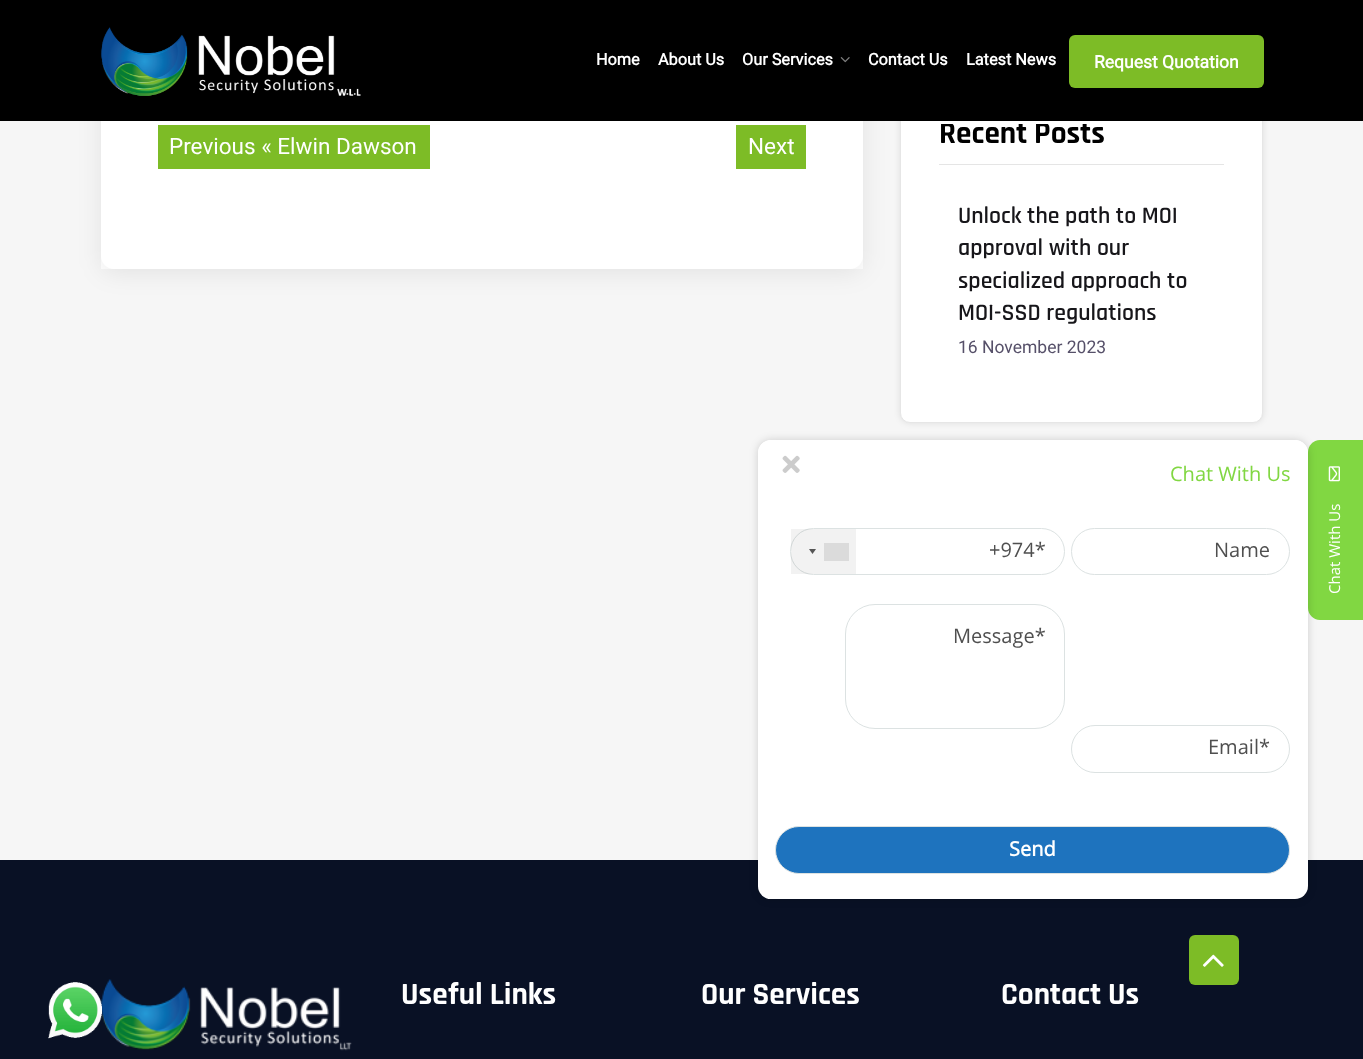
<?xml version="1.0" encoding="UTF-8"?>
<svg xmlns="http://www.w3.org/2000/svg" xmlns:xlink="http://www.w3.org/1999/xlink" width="1363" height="1059">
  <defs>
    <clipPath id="clip1"><path d="M 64 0 h 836 v 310 h -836 z m 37 -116 h 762 v 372 c 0 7 -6 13 -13 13 h -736 c -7 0 -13 -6 -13 -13 z" clip-rule="evenodd" /></clipPath>
    <clipPath id="clip2"><rect x="939" y="124" width="285" height="254" /></clipPath>
  </defs>
  <rect width="100%" height="100%" fill="#f6f6f6" />
  <rect x="101" y="121" width="762" height="148" fill="#ffffff" />
  <g clip-path="url(#clip1)">
    <rect x="101" y="-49" width="762" height="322" rx="13" fill="#000000" fill-opacity="0.08" filter="blur(12px)" />
  </g>
  <rect x="900" y="79" width="363" height="344" rx="10" fill="#000000" fill-opacity="0.1" filter="blur(3px)" />
  <rect x="900.5" y="79.5" width="362" height="343" rx="9.5" fill="#ffffff" stroke="#e6e6e6" />
  <rect width="1363" height="121" fill="#000000" />
  <image x="101" y="27" width="260" height="69" xlink:href="image1.png" />
  <image x="840" y="57" width="10" height="6" xlink:href="image2.png" />
  <rect x="1069" y="35" width="195" height="53" rx="6" fill="#7dbc26" />
  <rect x="158" y="125" width="272" height="44" fill="#7dbc26" />
  <rect x="736" y="125" width="70" height="44" fill="#7dbc26" />
  <rect x="939" y="164" width="285" height="1" fill="#e5e5e5" />
  <rect y="860" width="1363" height="199" fill="#091125" />
  <image x="101" y="979" width="251" height="72" xlink:href="image3.png" />
  <path d="M 1308 608 v -156 c 0 -6 5 -12 12 -12 h 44 v 180 h -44 c -7 0 -12 -6 -12 -12 z" fill="#81d742" />
  <rect x="758" y="440" width="550" height="459" rx="13" fill="#000000" fill-opacity="0.16" filter="blur(4px)" />
  <rect x="758" y="440" width="550" height="459" rx="13" fill="#ffffff" />
  <path d="M 771 440 h 524 c 7 0 13 6 13 13 v 56 h -550 v -56 c 0 -7 6 -13 13 -13 z" fill="#ffffff" />
  <image x="782" y="455" width="18" height="18" xlink:href="image4.png" />
  <rect x="790.5" y="528.5" width="274" height="46" rx="23" fill="none" stroke="#dce2e2" />
  <rect x="791" y="529" width="65" height="45" fill="#000000" fill-opacity="0.05" />
  <path d="M 809 549 h 7 l -3.5 5 z" fill="#555555" />
  <rect x="824" y="543" width="25" height="18" fill="#888888" filter="blur(0.5px)" />
  <rect x="824" y="543" width="25" height="18" fill="#dbdbdb" />
  <rect x="1071.5" y="528.5" width="218" height="46" rx="23" fill="none" stroke="#dce2e2" />
  <rect x="845.5" y="604.5" width="219" height="124" rx="29.5" fill="none" stroke="#dce2e2" />
  <rect x="1071.5" y="725.5" width="218" height="47" rx="23.5" fill="none" stroke="#dce2e2" />
  <rect x="775.5" y="826.5" width="514" height="47" rx="23.5" fill="#1e73be" stroke="#dce2e2" />
  <image x="1328" y="466" width="12" height="16" xlink:href="image5.png" />
  <rect x="1189" y="935" width="50" height="50" rx="6" fill="#7dbc26" />
  <image x="1202" y="954" width="22" height="13" xlink:href="image6.png" />
  <image x="48" y="982" width="54" height="57" xlink:href="image7.png" />
  <text x="596" y="65" style="font-family: Roboto; font-size: 16.25px; font-weight: bold; fill: #ffffff">Home</text>
  <text x="658" y="65" style="font-family: Roboto; font-size: 16.25px; font-weight: bold; fill: #ffffff">About Us</text>
  <text x="742" y="65" style="font-family: Roboto; font-size: 16.25px; font-weight: bold; fill: #ffffff">Our Services</text>
  <text x="868" y="65" style="font-family: Roboto; font-size: 16.25px; font-weight: bold; fill: #ffffff">Contact Us</text>
  <text x="966" y="65" style="font-family: Roboto; font-size: 16.25px; font-weight: bold; fill: #ffffff">Latest News</text>
  <text x="1094" y="68" style="font-family: Roboto; font-size: 17.5px; font-weight: bold; fill: #ffffff">Request Quotation</text>
  <text x="169" y="154" style="font-family: Roboto; font-size: 22.5px; fill: #ffffff">Previous « Elwin Dawson</text>
  <text x="748" y="154" style="font-family: Roboto; font-size: 22.5px; fill: #ffffff">Next</text>
  <g clip-path="url(#clip2)">
    <text x="939" y="143" style="font-family: Rajdhani; font-size: 31.25px; font-weight: bold; fill: #000000">Recent Posts</text>
  </g>
  <text x="958" y="223" style="font-family: Rajdhani; font-size: 23.75px; font-weight: 600; fill: #17161a">Unlock the path to MOI</text>
  <text x="958" y="255" style="font-family: Rajdhani; font-size: 23.75px; font-weight: 600; fill: #17161a">approval with our</text>
  <text x="958" y="288" style="font-family: Rajdhani; font-size: 23.75px; font-weight: 600; fill: #17161a">specialized approach to</text>
  <text x="958" y="320" style="font-family: Rajdhani; font-size: 23.75px; font-weight: 600; fill: #17161a">MOI-SSD regulations</text>
  <text x="958" y="353" style="font-family: Roboto; font-size: 17.5px; fill: #565069">16 November 2023</text>
  <text x="401" y="1004" style="font-family: Rajdhani; font-size: 31.25px; font-weight: bold; fill: #ffffff">Useful Links</text>
  <text x="701" y="1004" style="font-family: Rajdhani; font-size: 31.25px; font-weight: bold; fill: #ffffff">Our Services</text>
  <text x="1001" y="1004" style="font-family: Rajdhani; font-size: 31.25px; font-weight: bold; fill: #ffffff">Contact Us</text>
  <text x="1170" y="481" style="font-family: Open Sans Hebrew; font-size: 20px; fill: #81d742">Chat With Us</text>
  <text x="989" y="557" style="font-family: Open Sans Hebrew; font-size: 20px; fill: #4f4f4f">+974*</text>
  <text x="1214" y="557" style="font-family: Open Sans Hebrew; font-size: 20px; fill: #4f4f4f">Name</text>
  <text x="953" y="643" style="font-family: Open Sans Hebrew; font-size: 20px; fill: #4f4f4f">Message*</text>
  <text x="1208" y="754" style="font-family: Open Sans Hebrew; font-size: 20px; fill: #4f4f4f">Email*</text>
  <text x="1009" y="856" style="font-family: Open Sans Hebrew; font-size: 20px; font-weight: bold; fill: #ffffff">Send</text>
  <text x="1340" y="594" transform="rotate(-90 1340 594)" style="font-family: Open Sans Hebrew; font-size: 15px; fill: #ffffff">Chat With Us</text>
</svg>
